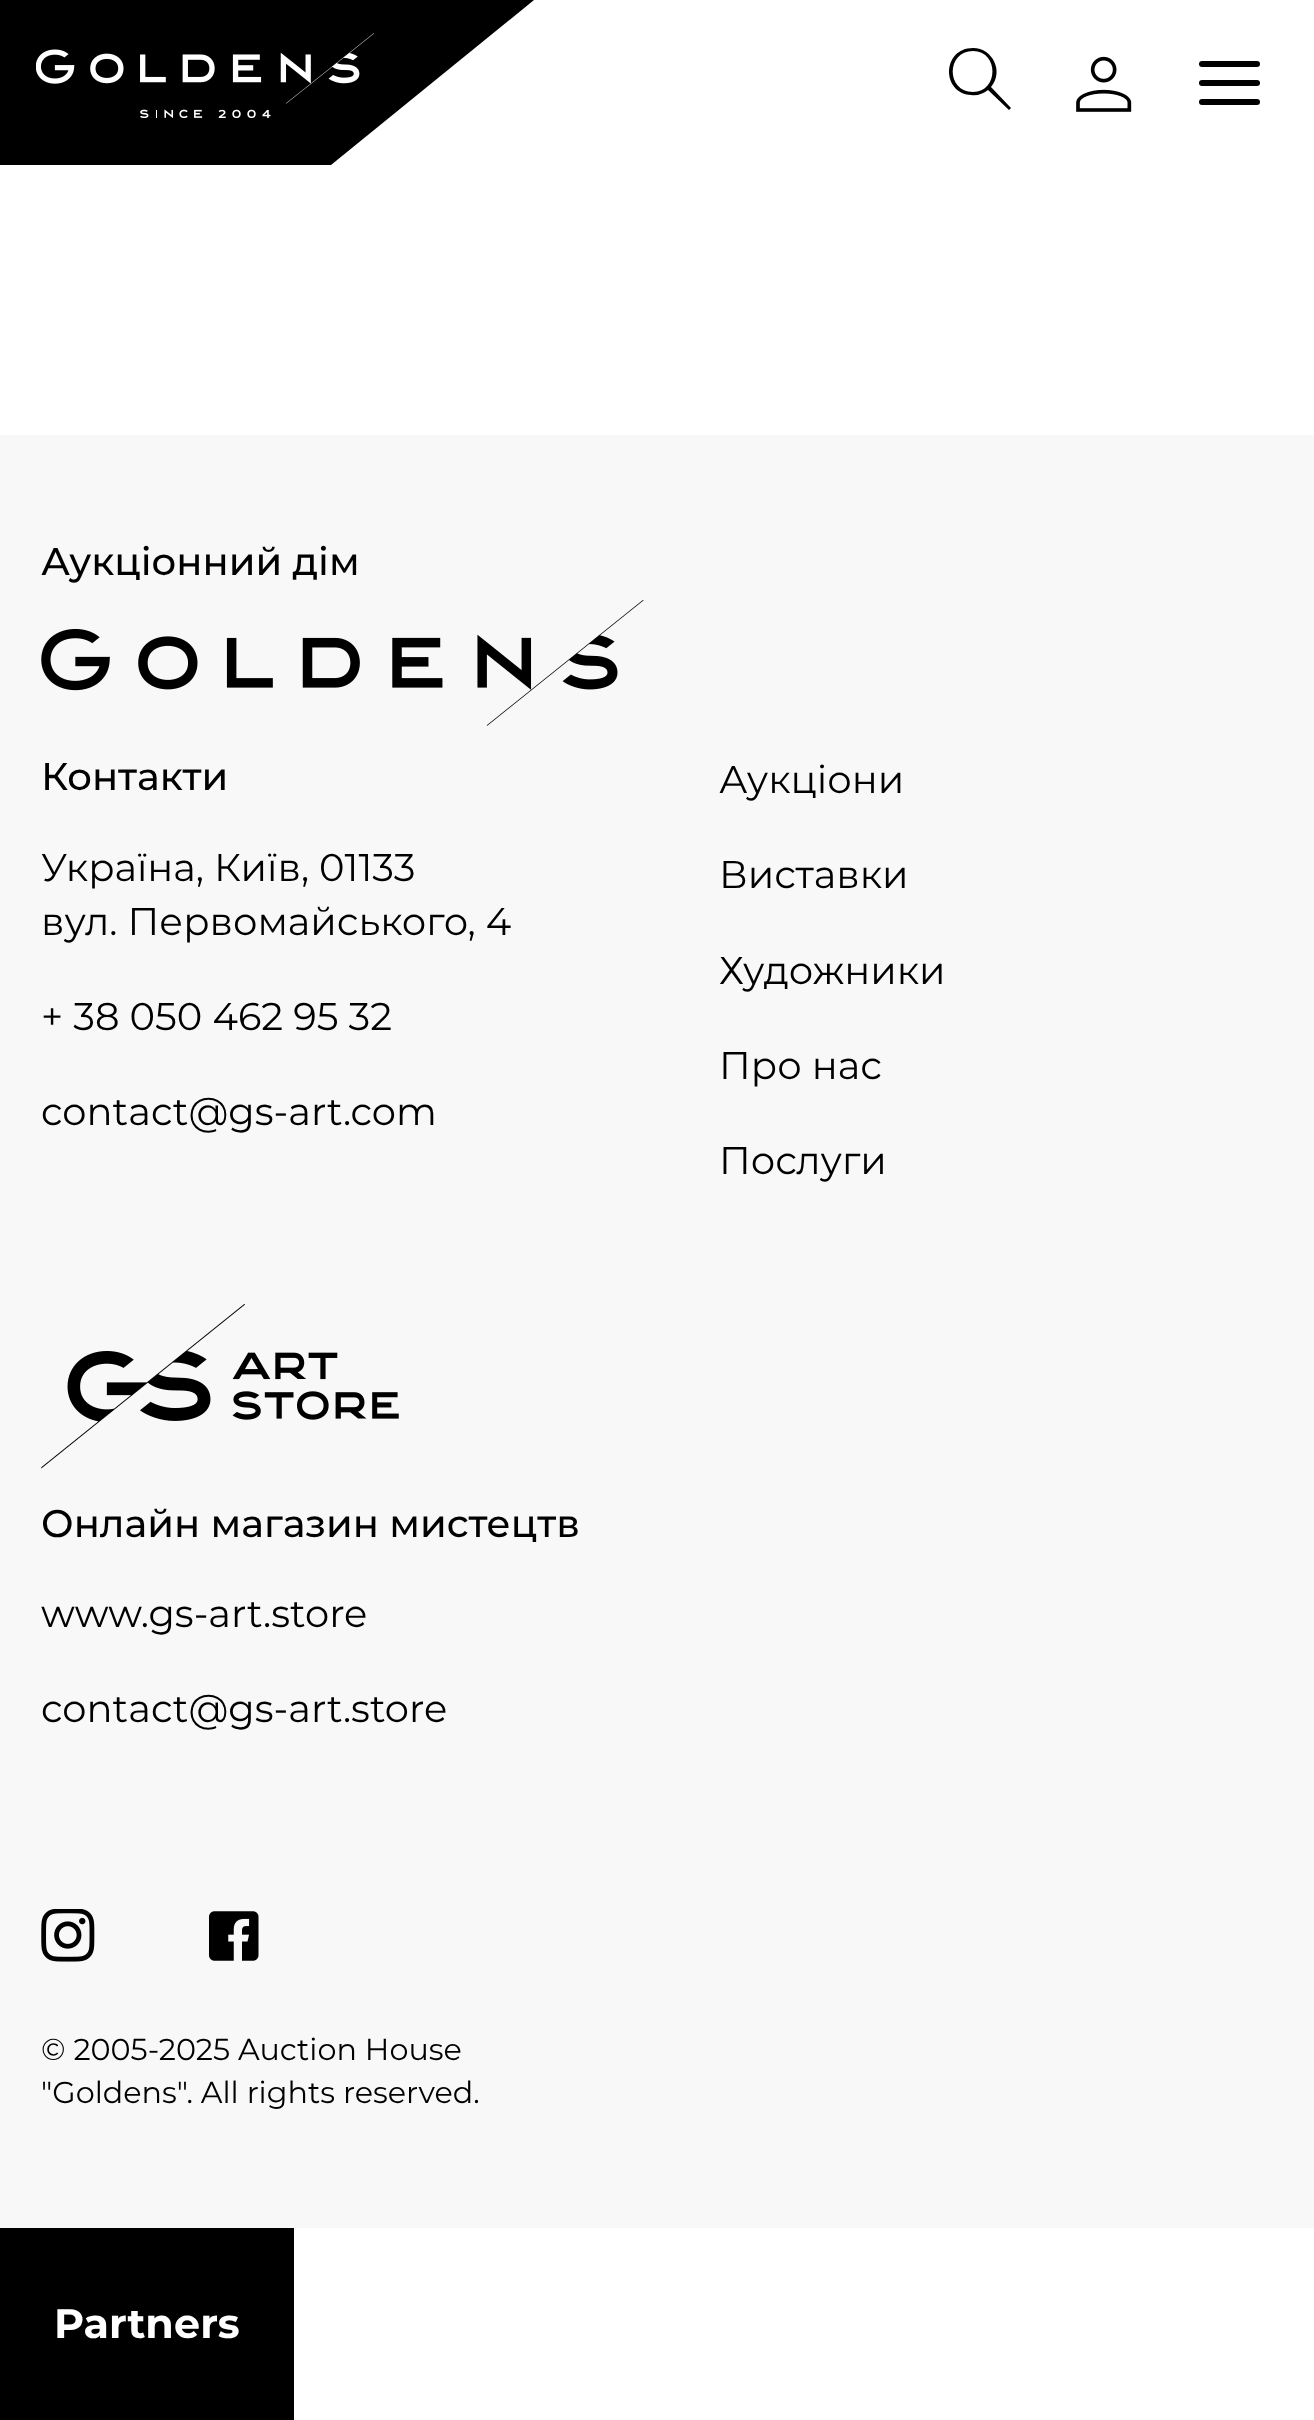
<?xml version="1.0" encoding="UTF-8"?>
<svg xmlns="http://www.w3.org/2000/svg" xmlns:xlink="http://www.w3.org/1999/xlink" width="1314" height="2420">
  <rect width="100%" height="100%" fill="#ffffff" />
  <path d="M -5 0 v 165 h 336 l 203 -165 z" fill="#000000" />
  <image x="36" y="33" width="338" height="85" xlink:href="image1.png" />
  <path d="M 973 48 c 20 0 31 24 18 39 l 20 21 l -2 2 l -21 -20 c -5 4 -11 6 -17 5 c -30 -2 -29 -47 2 -47 z m 0 3 c -27 0 -27 41 0 41 c 26 0 26 -41 0 -41 z" fill="#000000" />
  <image x="1076" y="56" width="56" height="56" xlink:href="image2.png" />
  <rect x="1199" y="61" width="61" height="6" rx="3" fill="#000000" />
  <rect x="1199" y="80" width="61" height="6" rx="3" fill="#000000" />
  <rect x="1199" y="99" width="61" height="6" rx="3" fill="#000000" />
  <rect y="435" width="1314" height="1793" fill="#f8f8f8" />
  <image x="41" y="600" width="603" height="126" xlink:href="image3.png" />
  <image x="41" y="1304" width="358" height="165" xlink:href="image4.png" />
  <image x="41" y="1909" width="54" height="53" xlink:href="image5.png" />
  <image x="209" y="1911" width="50" height="50" xlink:href="image6.png" />
  <rect y="2228" width="294" height="192" fill="#000000" />
  <text x="41" y="575" style="font-family: Montserrat; font-size: 38.5px; font-weight: 500; fill: #000000">Аукціонний дім</text>
  <text x="41" y="790" style="font-family: Montserrat; font-size: 38.5px; font-weight: 500; fill: #000000">Контакти</text>
  <text x="41" y="881" style="font-family: Montserrat; font-size: 38.5px; fill: #000000">Україна, Київ, 01133</text>
  <text x="41" y="935" style="font-family: Montserrat; font-size: 38.5px; fill: #000000">вул. Первомайського, 4</text>
  <text x="41" y="1030" style="font-family: Montserrat; font-size: 38.5px; fill: #000000">+ 38 050 462 95 32</text>
  <text x="41" y="1125" style="font-family: Montserrat; font-size: 38.5px; fill: #000000">contact@gs-art.com</text>
  <text x="719" y="793" style="font-family: Montserrat; font-size: 38.5px; fill: #000000">Аукціони</text>
  <text x="719" y="888" style="font-family: Montserrat; font-size: 38.5px; fill: #000000">Виставки</text>
  <text x="719" y="984" style="font-family: Montserrat; font-size: 38.5px; fill: #000000">Художники</text>
  <text x="719" y="1079" style="font-family: Montserrat; font-size: 38.5px; fill: #000000">Про нас</text>
  <text x="719" y="1174" style="font-family: Montserrat; font-size: 38.5px; fill: #000000">Послуги</text>
  <text x="41" y="1537" style="font-family: Montserrat; font-size: 38.5px; font-weight: 500; fill: #000000">Онлайн магазин мистецтв</text>
  <text x="41" y="1627" style="font-family: Montserrat; font-size: 38.5px; fill: #000000">www.gs-art.store</text>
  <text x="41" y="1722" style="font-family: Montserrat; font-size: 38.5px; fill: #000000">contact@gs-art.store</text>
  <text x="41" y="2060" style="font-family: Montserrat; font-size: 30.25px; fill: #000000">© 2005-2025 Auction House</text>
  <text x="41" y="2103" style="font-family: Montserrat; font-size: 30.25px; fill: #000000">"Goldens". All rights reserved.</text>
  <text x="54" y="2338" style="font-family: Montserrat; font-size: 41.25px; font-weight: bold; fill: #ffffff">Partners</text>
</svg>
